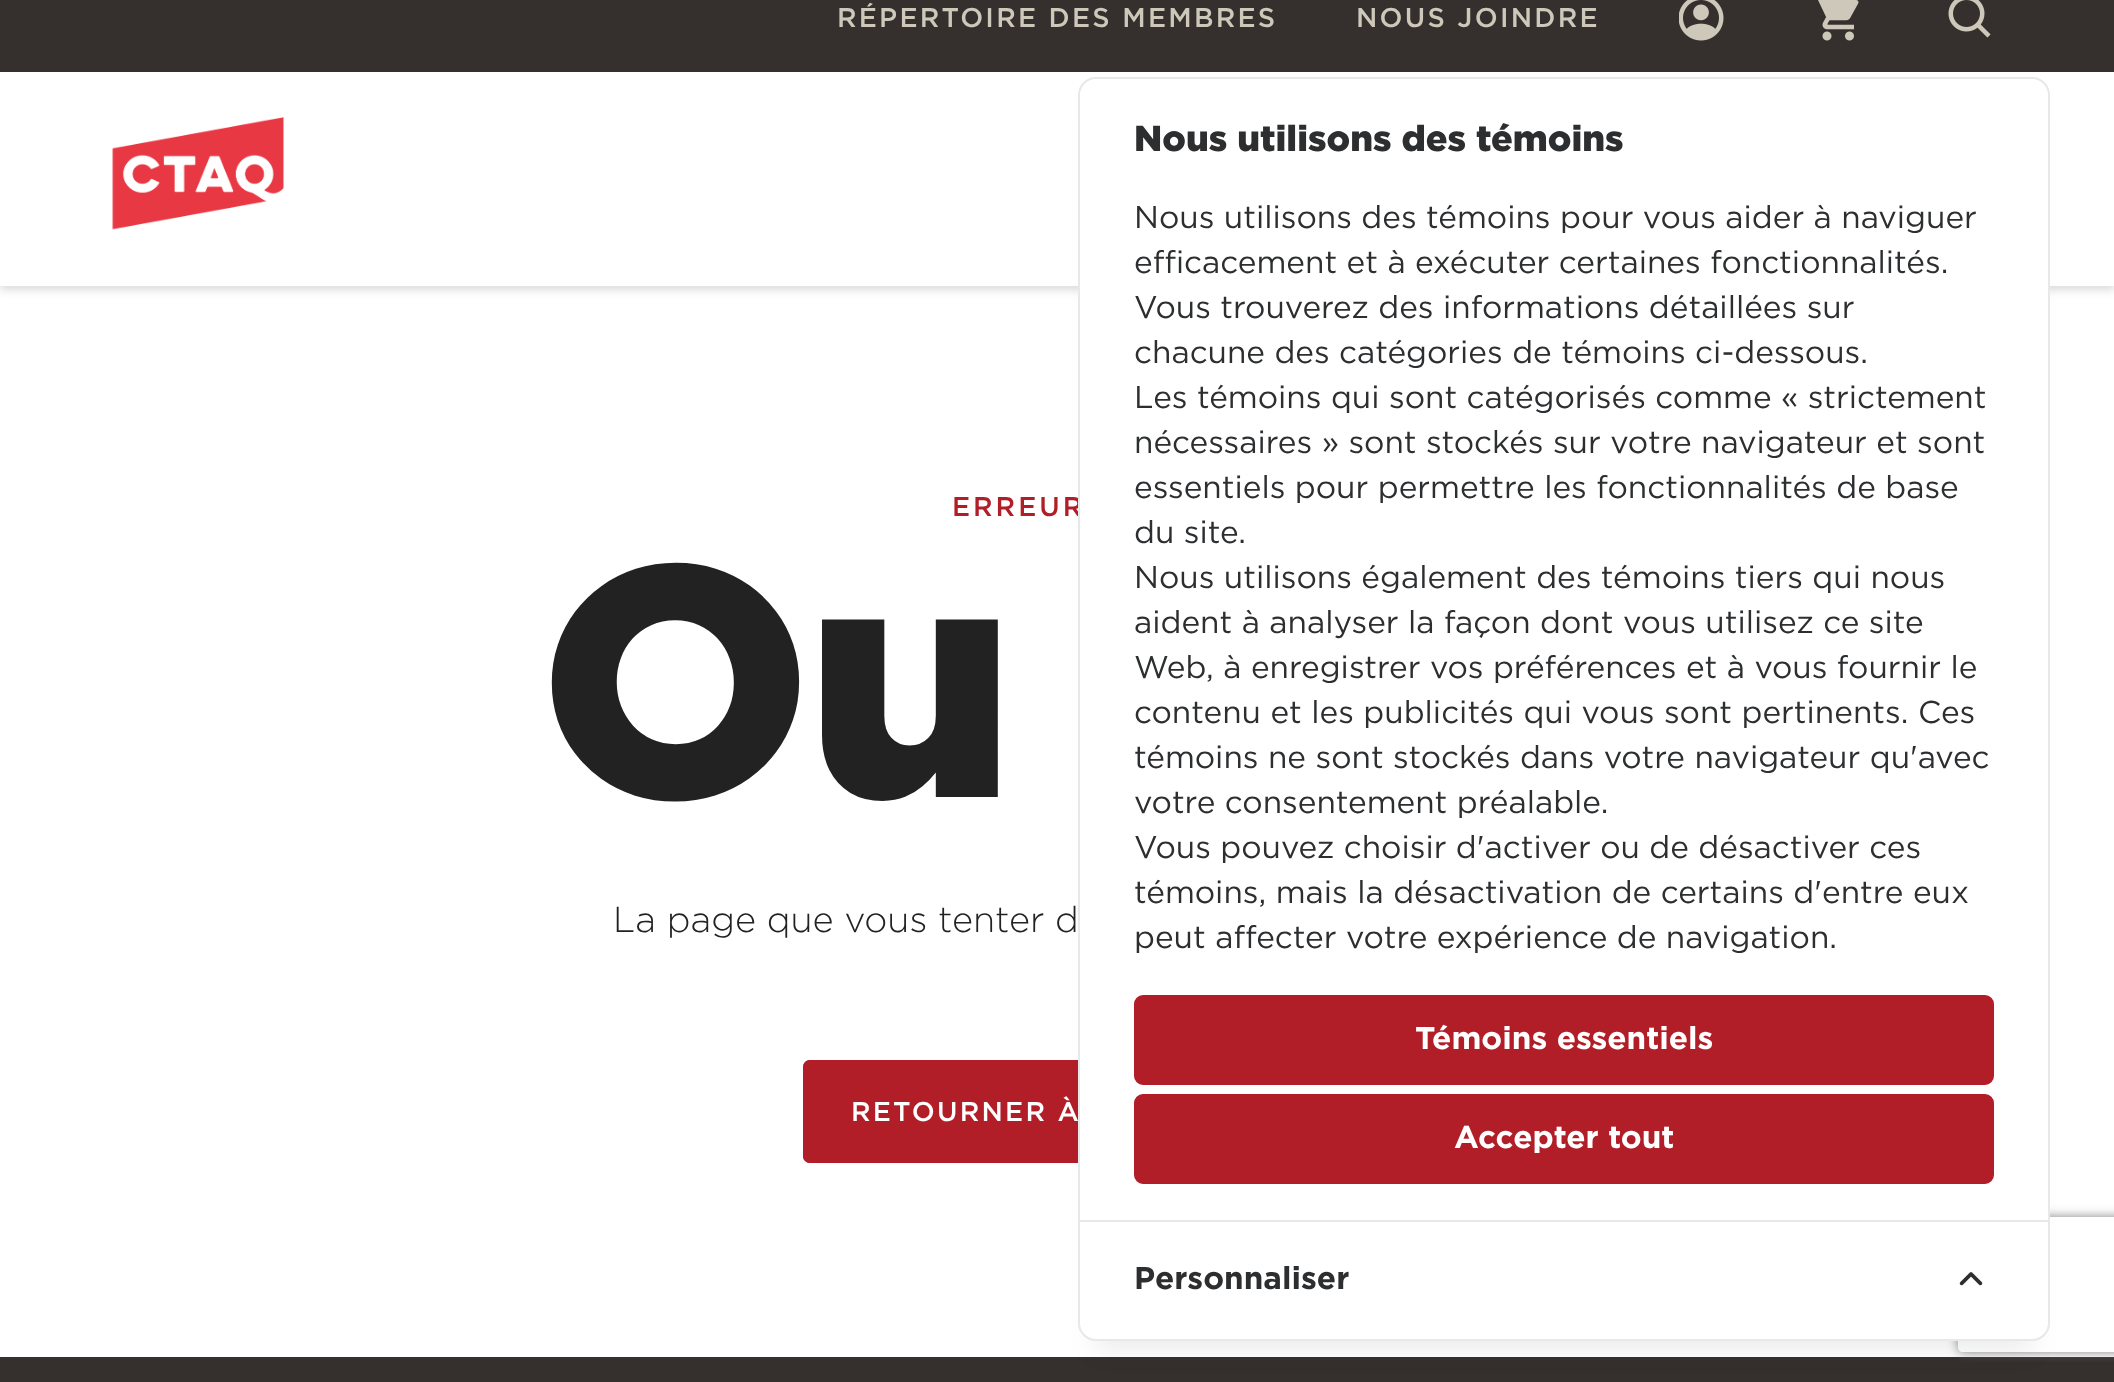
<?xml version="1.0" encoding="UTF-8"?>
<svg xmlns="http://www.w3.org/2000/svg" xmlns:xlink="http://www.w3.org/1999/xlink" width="2114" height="1382">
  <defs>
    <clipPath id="clip1"><path d="M 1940 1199 h 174 v 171 h -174 z m 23 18 h 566 c 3 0 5 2 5 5 v 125 c 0 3 -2 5 -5 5 h -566 c -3 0 -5 -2 -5 -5 v -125 c 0 -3 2 -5 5 -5 z" clip-rule="evenodd" /></clipPath>
  </defs>
  <rect width="100%" height="100%" fill="#ffffff" />
  <rect y="77" width="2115" height="213" fill="#000000" fill-opacity="0.14" filter="blur(4.5px)" />
  <rect width="2114" height="72" fill="#352f2d" />
  <image x="1679" y="0" width="45" height="41" xlink:href="image1.png" />
  <image x="1818" y="0" width="41" height="41" xlink:href="image2.png" />
  <image x="1948" y="0" width="43" height="38" xlink:href="image3.png" />
  <rect y="72" width="2114" height="214" fill="#ffffff" />
  <image x="112" y="117" width="172" height="113" xlink:href="image4.png" />
  <rect x="804" y="1061" width="507" height="101" rx="6" fill="none" stroke="#b21e28" stroke-width="2" />
  <rect x="803" y="1060" width="509" height="103" rx="7" fill="#b21e28" />
  <rect y="1357" width="2114" height="25" fill="#352f2d" />
  <rect x="1096" y="122" width="936" height="1228" fill="#000000" fill-opacity="0.08" filter="blur(13.5px)" />
  <g clip-path="url(#clip1)">
    <rect x="1958" y="1217" width="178" height="135" rx="5" fill="#808080" filter="blur(5.5px)" />
  </g>
  <text x="837" y="27" style="font-family: Gotham; font-size: 27px; font-weight: 500; letter-spacing: 2.25px; fill: #cdc8ba">RÉPERTOIRE DES MEMBRES</text>
  <text x="1356" y="27" style="font-family: Gotham; font-size: 27px; font-weight: 500; letter-spacing: 2.25px; fill: #cdc8ba">NOUS JOINDRE</text>
  <text x="952" y="516" style="font-family: Gotham; font-size: 27px; font-weight: 500; letter-spacing: 3px; fill: #b21e28">ERREUR</text>
  <text x="539" y="797" style="font-family: Gotham; font-size: 328px; font-weight: 900; letter-spacing: -5px; fill: #222222">Ou</text>
  <text x="613" y="932" style="font-family: Gotham; font-size: 36px; font-weight: 300; fill: #222222">La page que vous tenter d</text>
  <text x="851" y="1121" style="font-family: Gotham; font-size: 27px; font-weight: 500; letter-spacing: 2.25px; fill: #ffffff">RETOURNER À</text>
  <rect x="1079" y="78" width="970" height="1262" rx="17" fill="#ffffff" stroke="#e7e8e9" stroke-width="2" />
  <text x="1134" y="151" style="font-family: Gotham; font-size: 36px; font-weight: 900; fill: #2c2e30">Nous utilisons des témoins</text>
  <text x="1134" y="228" style="font-family: Gotham; font-size: 31.5px; fill: #2c2e30">Nous utilisons des témoins pour vous aider à naviguer</text>
  <text x="1134" y="273" style="font-family: Gotham; font-size: 31.5px; fill: #2c2e30">efficacement et à exécuter certaines fonctionnalités.</text>
  <text x="1134" y="318" style="font-family: Gotham; font-size: 31.5px; fill: #2c2e30">Vous trouverez des informations détaillées sur</text>
  <text x="1134" y="363" style="font-family: Gotham; font-size: 31.5px; fill: #2c2e30">chacune des catégories de témoins ci-dessous.</text>
  <text x="1134" y="408" style="font-family: Gotham; font-size: 31.5px; fill: #2c2e30">Les témoins qui sont catégorisés comme « strictement</text>
  <text x="1134" y="453" style="font-family: Gotham; font-size: 31.5px; fill: #2c2e30">nécessaires » sont stockés sur votre navigateur et sont</text>
  <text x="1134" y="498" style="font-family: Gotham; font-size: 31.5px; fill: #2c2e30">essentiels pour permettre les fonctionnalités de base</text>
  <text x="1134" y="543" style="font-family: Gotham; font-size: 31.5px; fill: #2c2e30">du site.</text>
  <text x="1134" y="588" style="font-family: Gotham; font-size: 31.5px; fill: #2c2e30">Nous utilisons également des témoins tiers qui nous</text>
  <text x="1134" y="633" style="font-family: Gotham; font-size: 31.5px; fill: #2c2e30">aident à analyser la façon dont vous utilisez ce site</text>
  <text x="1134" y="678" style="font-family: Gotham; font-size: 31.5px; fill: #2c2e30">Web, à enregistrer vos préférences et à vous fournir le</text>
  <text x="1134" y="723" style="font-family: Gotham; font-size: 31.5px; fill: #2c2e30">contenu et les publicités qui vous sont pertinents. Ces</text>
  <text x="1134" y="768" style="font-family: Gotham; font-size: 31.5px; fill: #2c2e30">témoins ne sont stockés dans votre navigateur qu'avec</text>
  <text x="1134" y="813" style="font-family: Gotham; font-size: 31.5px; fill: #2c2e30">votre consentement préalable.</text>
  <text x="1134" y="858" style="font-family: Gotham; font-size: 31.5px; fill: #2c2e30">Vous pouvez choisir d'activer ou de désactiver ces</text>
  <text x="1134" y="903" style="font-family: Gotham; font-size: 31.5px; fill: #2c2e30">témoins, mais la désactivation de certains d'entre eux</text>
  <text x="1134" y="948" style="font-family: Gotham; font-size: 31.5px; fill: #2c2e30">peut affecter votre expérience de navigation.</text>
  <rect x="1135" y="996" width="858" height="88" rx="8" fill="#b21e28" stroke="#b21e28" stroke-width="2" />
  <text x="1415" y="1049" style="font-family: Gotham; font-size: 31.5px; font-weight: bold; fill: #ffffff">Témoins essentiels</text>
  <rect x="1135" y="1095" width="858" height="88" rx="8" fill="#b21e28" stroke="#b21e28" stroke-width="2" />
  <text x="1454" y="1148" style="font-family: Gotham; font-size: 31.5px; font-weight: bold; fill: #ffffff">Accepter tout</text>
  <rect x="1080" y="1220" width="968" height="2" fill="#e7e8e9" />
  <text x="1134" y="1289" style="font-family: Gotham; font-size: 31.5px; font-weight: bold; fill: #2c2e30">Personnaliser</text>
  <image x="1959" y="1272" width="24" height="14" xlink:href="image5.png" />
</svg>
